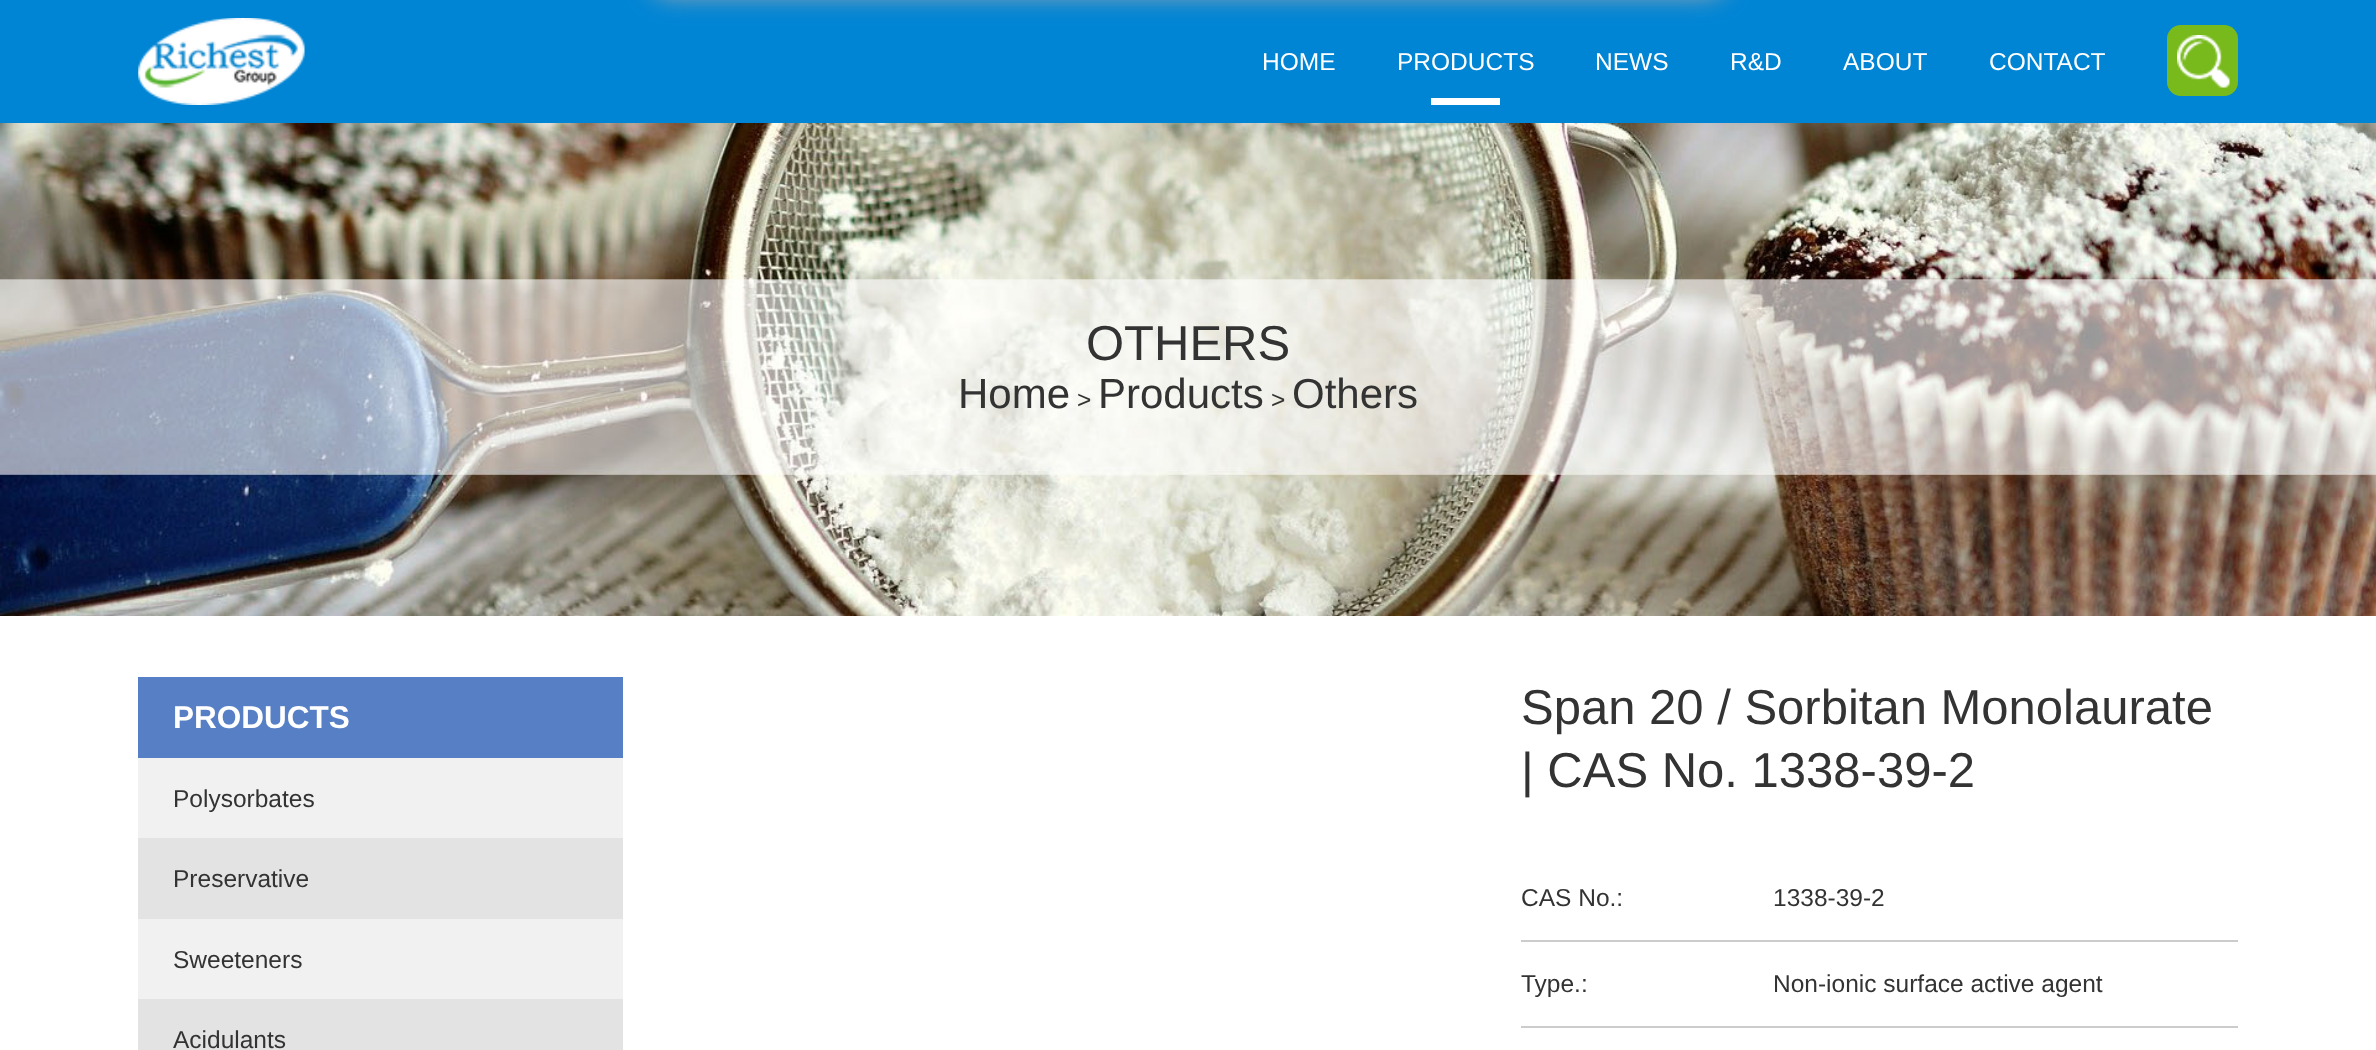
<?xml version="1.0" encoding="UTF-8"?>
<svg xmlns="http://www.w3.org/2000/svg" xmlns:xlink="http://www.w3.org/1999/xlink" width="2376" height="1050">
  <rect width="100%" height="100%" fill="#ffffff" />
  <rect width="2376" height="123" fill="#0085d5" />
  <image x="138" y="18" width="167" height="87" xlink:href="image1.png" />
  <rect x="651" y="-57" width="1075" height="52" rx="18" fill="#aaaaaa" filter="blur(13px)" />
  <rect x="2167" y="25" width="71" height="71" rx="14" fill="#78ba1c" />
  <image x="2177" y="35" width="53" height="53" xlink:href="image2.png" />
  <rect x="1431" y="98" width="69" height="7" fill="#ffffff" />
  <image x="0" y="123" width="2376" height="493" xlink:href="image3.png" />
  <rect x="138" y="677" width="485" height="81" fill="#577fc5" />
  <rect x="138" y="758" width="485" height="80" fill="#f1f1f1" />
  <rect x="138" y="838" width="485" height="81" fill="#e3e3e3" />
  <rect x="138" y="919" width="485" height="80" fill="#f1f1f1" />
  <rect x="138" y="999" width="485" height="51" fill="#e3e3e3" />
  <rect x="1521" y="940" width="717" height="2" fill="#cccccc" />
  <rect x="1521" y="1026" width="717" height="2" fill="#cccccc" />
  <text x="1262" y="70" style="font-family: Liberation Sans; font-size: 24.5px; fill: #ffffff">HOME</text>
  <text x="1397" y="70" style="font-family: Liberation Sans; font-size: 24.5px; fill: #ffffff">PRODUCTS</text>
  <text x="1595" y="70" style="font-family: Liberation Sans; font-size: 24.5px; fill: #ffffff">NEWS</text>
  <text x="1730" y="70" style="font-family: Liberation Sans; font-size: 24.5px; fill: #ffffff">R&amp;D</text>
  <text x="1843" y="70" style="font-family: Liberation Sans; font-size: 24.5px; fill: #ffffff">ABOUT</text>
  <text x="1989" y="70" style="font-family: Liberation Sans; font-size: 24.5px; fill: #ffffff">CONTACT</text>
  <text x="1086" y="360" style="font-family: Liberation Sans; font-size: 49px; fill: #333333">OTHERS</text>
  <text x="958" y="408" style="font-family: Liberation Sans; font-size: 42px; fill: #333333">Home</text>
  <text x="1077" y="408" style="font-family: Liberation Sans; font-size: 24.5px; fill: #333333">&gt;</text>
  <text x="1098" y="408" style="font-family: Liberation Sans; font-size: 42px; fill: #333333">Products</text>
  <text x="1271" y="408" style="font-family: Liberation Sans; font-size: 24.5px; fill: #333333">&gt;</text>
  <text x="1292" y="408" style="font-family: Liberation Sans; font-size: 42px; fill: #333333">Others</text>
  <text x="173" y="728" style="font-family: Liberation Sans; font-size: 31.5px; font-weight: bold; fill: #ffffff">PRODUCTS</text>
  <text x="173" y="807" style="font-family: Liberation Sans; font-size: 24.5px; fill: #333333">Polysorbates</text>
  <text x="173" y="887" style="font-family: Liberation Sans; font-size: 24.5px; fill: #333333">Preservative</text>
  <text x="173" y="968" style="font-family: Liberation Sans; font-size: 24.5px; fill: #333333">Sweeteners</text>
  <text x="173" y="1048" style="font-family: Liberation Sans; font-size: 24.5px; fill: #333333">Acidulants</text>
  <text x="1521" y="724" style="font-family: Liberation Sans; font-size: 49px; fill: #333333">Span 20 / Sorbitan Monolaurate</text>
  <text x="1521" y="787" style="font-family: Liberation Sans; font-size: 49px; fill: #333333">| CAS No. 1338-39-2</text>
  <text x="1521" y="906" style="font-family: Liberation Sans; font-size: 24.5px; fill: #333333">CAS No.:</text>
  <text x="1773" y="906" style="font-family: Liberation Sans; font-size: 24.5px; fill: #333333">1338-39-2</text>
  <text x="1521" y="992" style="font-family: Liberation Sans; font-size: 24.5px; fill: #333333">Type.:</text>
  <text x="1773" y="992" style="font-family: Liberation Sans; font-size: 24.5px; fill: #333333">Non-ionic surface active agent</text>
</svg>
